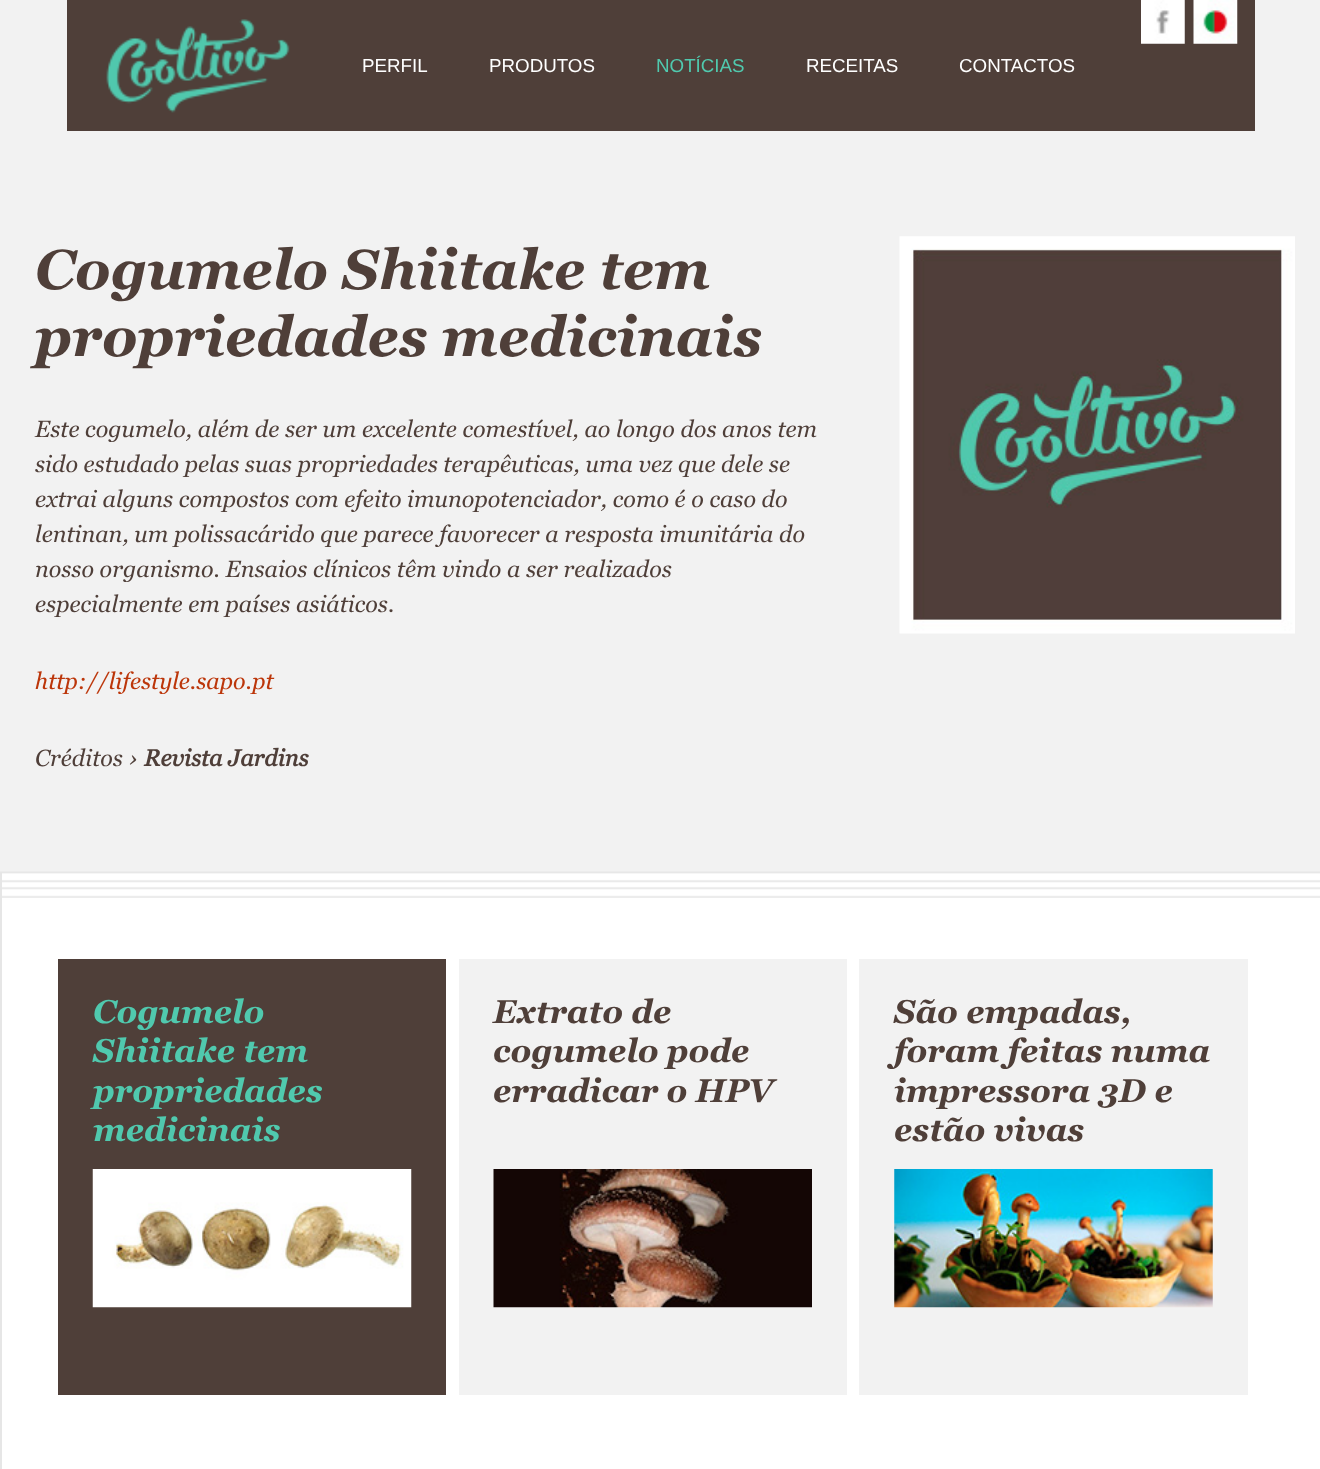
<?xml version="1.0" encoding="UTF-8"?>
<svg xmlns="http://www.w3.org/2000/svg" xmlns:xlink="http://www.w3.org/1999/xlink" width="1320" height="1469">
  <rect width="100%" height="100%" fill="#f2f2f2" />
  <rect x="67" width="1188" height="131" fill="#4f3f39" />
  <image x="106" y="19" width="184" height="94" xlink:href="image1.png" />
  <image x="1141" y="0" width="44" height="44" xlink:href="image2.png" />
  <image x="1193" y="0" width="45" height="44" xlink:href="image3.png" />
  <image x="899" y="236" width="396" height="398" xlink:href="image4.png" />
  <rect x="2" y="872" width="1318" height="597" fill="#ffffff" />
  <image x="0" y="871" width="1320" height="27" xlink:href="image5.png" />
  <rect y="872" width="2" height="597" fill="#e6e6e6" />
  <rect x="58" y="959" width="388" height="436" fill="#4f3f39" />
  <image x="92" y="1169" width="320" height="139" xlink:href="image6.png" />
  <rect x="459" y="959" width="388" height="436" fill="#f2f2f2" />
  <image x="493" y="1169" width="319" height="139" xlink:href="image7.png" />
  <rect x="859" y="959" width="389" height="436" fill="#f2f2f2" />
  <image x="894" y="1169" width="319" height="139" xlink:href="image8.png" />
  <text x="362" y="72" style="font-family: Liberation Sans; font-size: 18.75px; fill: #ffffff">PERFIL</text>
  <text x="489" y="72" style="font-family: Liberation Sans; font-size: 18.75px; fill: #ffffff">PRODUTOS</text>
  <text x="656" y="72" style="font-family: Liberation Sans; font-size: 18.75px; fill: #50c9ae">NOTÍCIAS</text>
  <text x="806" y="72" style="font-family: Liberation Sans; font-size: 18.75px; fill: #ffffff">RECEITAS</text>
  <text x="959" y="72" style="font-family: Liberation Sans; font-size: 18.75px; fill: #ffffff">CONTACTOS</text>
  <text x="35" y="289" style="font-family: Georgia; font-size: 56px; font-weight: bold; font-style: italic; fill: #4f3f39">Cogumelo Shiitake tem</text>
  <text x="35" y="356" style="font-family: Georgia; font-size: 56px; font-weight: bold; font-style: italic; fill: #4f3f39">propriedades medicinais</text>
  <text x="35" y="437" style="font-family: Georgia; font-size: 23.35px; font-style: italic; fill: #4f3f39">Este cogumelo, além de ser um excelente comestível, ao longo dos anos tem</text>
  <text x="35" y="472" style="font-family: Georgia; font-size: 23.35px; font-style: italic; fill: #4f3f39">sido estudado pelas suas propriedades terapêuticas, uma vez que dele se</text>
  <text x="35" y="507" style="font-family: Georgia; font-size: 23.35px; font-style: italic; fill: #4f3f39">extrai alguns compostos com efeito imunopotenciador, como é o caso do</text>
  <text x="35" y="542" style="font-family: Georgia; font-size: 23.35px; font-style: italic; fill: #4f3f39">lentinan, um polissacárido que parece favorecer a resposta imunitária do</text>
  <text x="35" y="577" style="font-family: Georgia; font-size: 23.35px; font-style: italic; fill: #4f3f39">nosso organismo. Ensaios clínicos têm vindo a ser realizados</text>
  <text x="35" y="612" style="font-family: Georgia; font-size: 23.35px; font-style: italic; fill: #4f3f39">especialmente em países asiáticos.</text>
  <text x="35" y="689" style="font-family: Georgia; font-size: 23.35px; font-style: italic; fill: #bc360a">http://lifestyle.sapo.pt</text>
  <text x="35" y="766" style="font-family: Georgia; font-size: 23.35px; font-style: italic; fill: #4f3f39">Créditos ›</text>
  <text x="144" y="766" style="font-family: 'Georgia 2'; font-size: 23.35px; font-weight: bold; font-style: italic; fill: #4f3f39">Revista Jardins</text>
  <text x="93" y="1023" style="font-family: Georgia; font-size: 32.75px; font-weight: bold; font-style: italic; fill: #50c9ae">Cogumelo</text>
  <text x="93" y="1062" style="font-family: Georgia; font-size: 32.75px; font-weight: bold; font-style: italic; fill: #50c9ae">Shiitake tem</text>
  <text x="93" y="1102" style="font-family: Georgia; font-size: 32.75px; font-weight: bold; font-style: italic; fill: #50c9ae">propriedades</text>
  <text x="93" y="1141" style="font-family: Georgia; font-size: 32.75px; font-weight: bold; font-style: italic; fill: #50c9ae">medicinais</text>
  <text x="493" y="1023" style="font-family: Georgia; font-size: 32.75px; font-weight: bold; font-style: italic; fill: #4f3f39">Extrato de</text>
  <text x="493" y="1062" style="font-family: Georgia; font-size: 32.75px; font-weight: bold; font-style: italic; fill: #4f3f39">cogumelo pode</text>
  <text x="493" y="1102" style="font-family: Georgia; font-size: 32.75px; font-weight: bold; font-style: italic; fill: #4f3f39">erradicar o HPV</text>
  <text x="894" y="1023" style="font-family: Georgia; font-size: 32.75px; font-weight: bold; font-style: italic; fill: #4f3f39">São empadas,</text>
  <text x="894" y="1062" style="font-family: Georgia; font-size: 32.75px; font-weight: bold; font-style: italic; fill: #4f3f39">foram feitas numa</text>
  <text x="894" y="1102" style="font-family: Georgia; font-size: 32.75px; font-weight: bold; font-style: italic; fill: #4f3f39">impressora 3D e</text>
  <text x="894" y="1141" style="font-family: Georgia; font-size: 32.75px; font-weight: bold; font-style: italic; fill: #4f3f39">estão vivas</text>
</svg>
